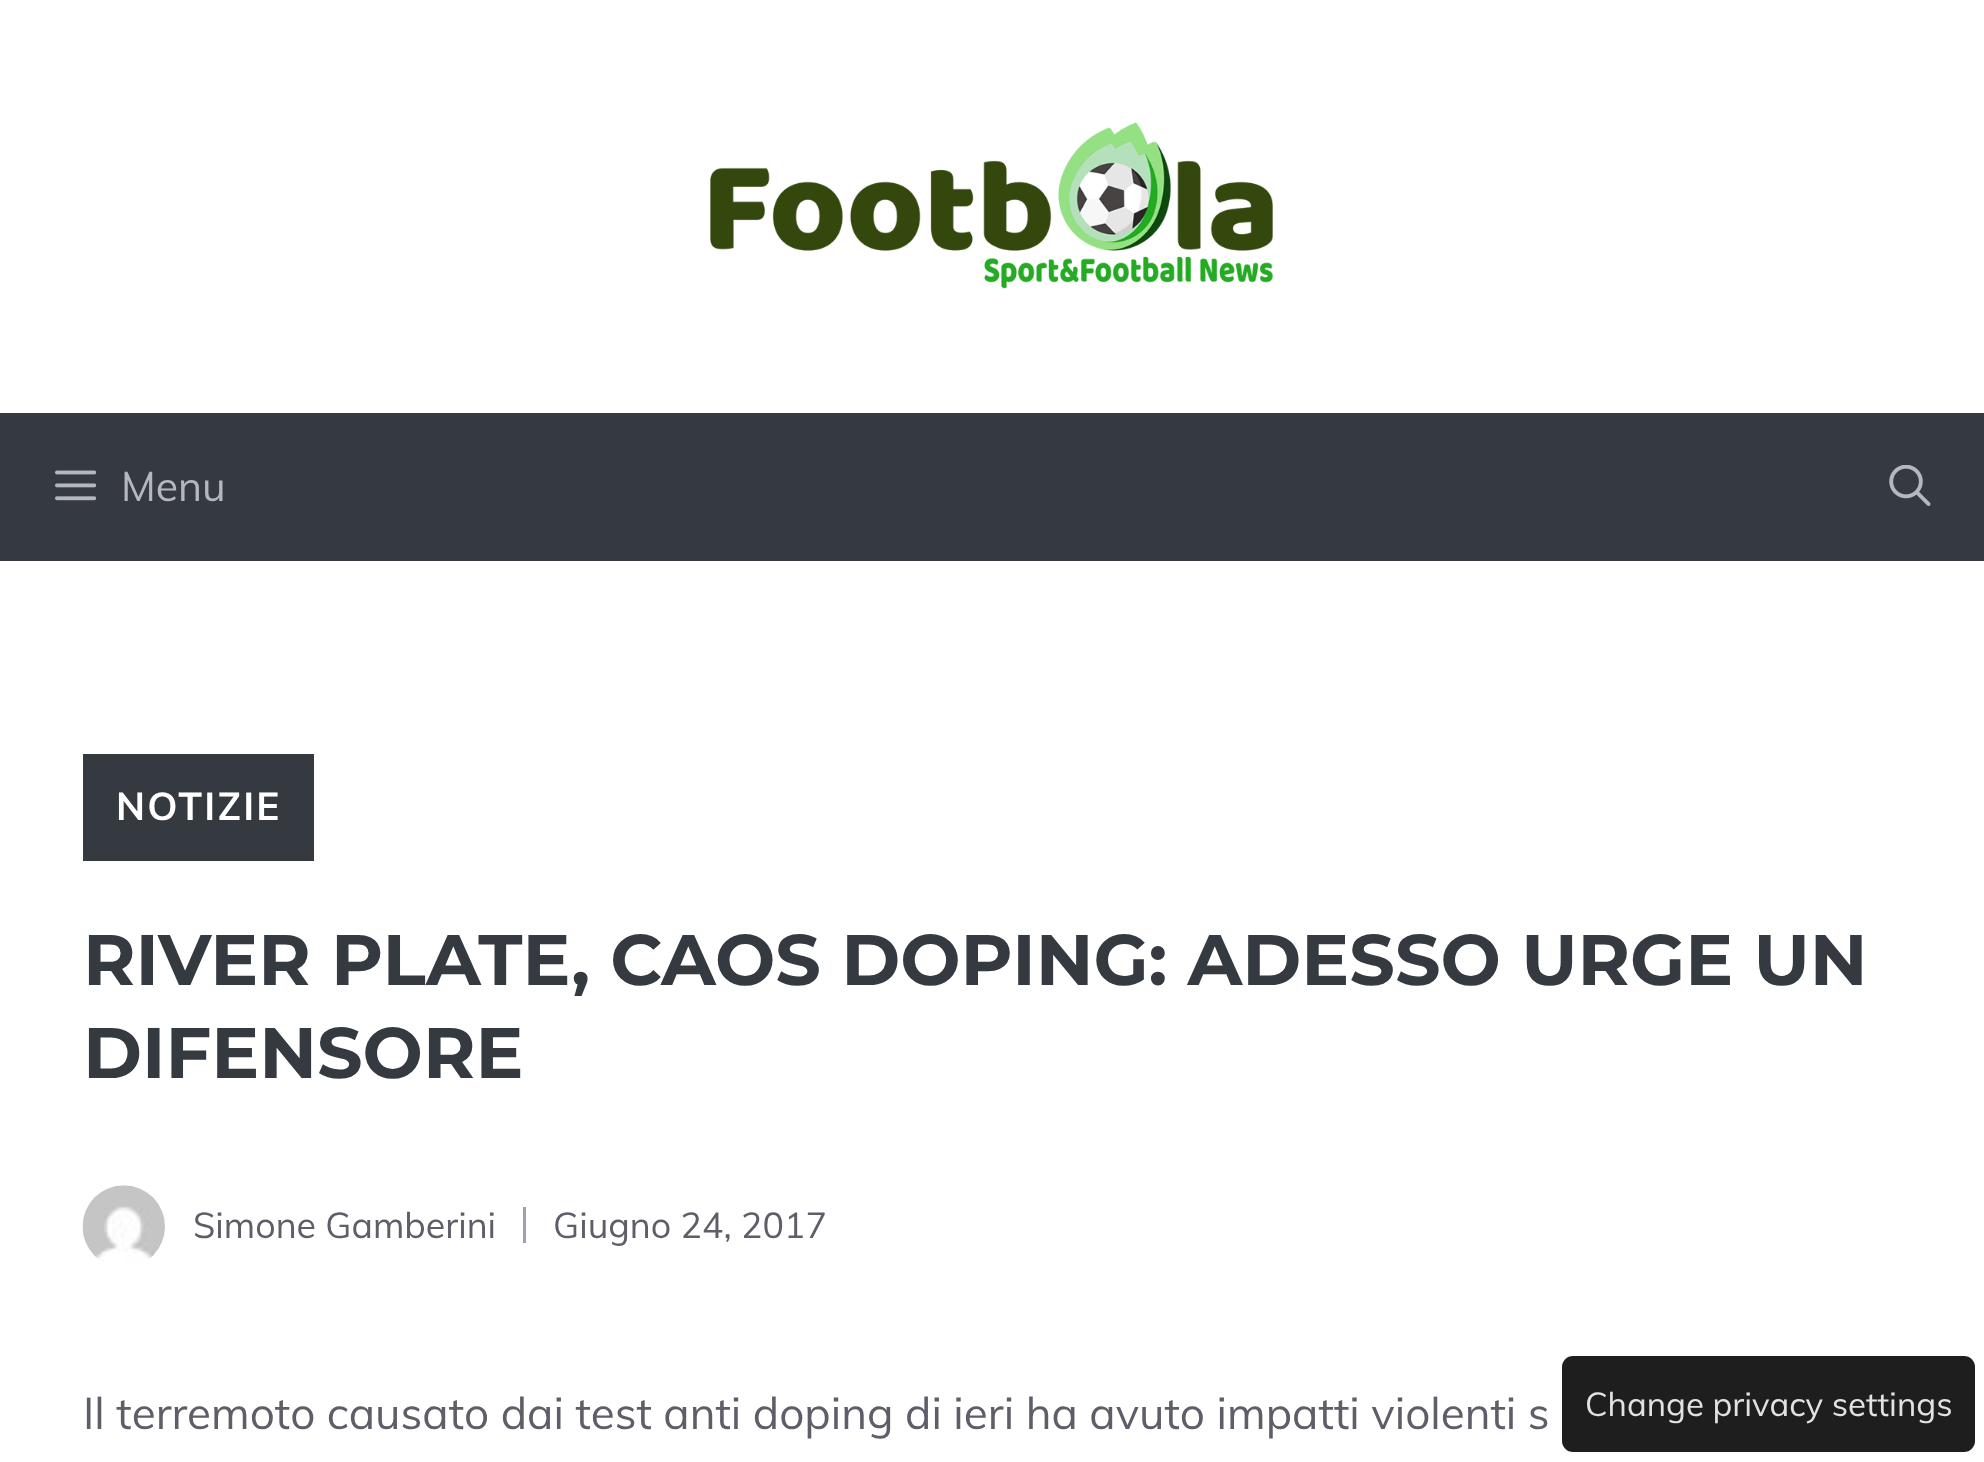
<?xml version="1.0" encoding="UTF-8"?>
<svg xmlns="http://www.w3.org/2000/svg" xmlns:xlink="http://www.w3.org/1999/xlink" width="1984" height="1462">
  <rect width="100%" height="100%" fill="#ffffff" />
  <image x="710" y="122" width="563" height="167" xlink:href="image1.png" />
  <rect y="413" width="1984" height="148" fill="#343a40" />
  <image x="55" y="470" width="41" height="31" xlink:href="image2.png" />
  <image x="1889" y="465" width="42" height="41" xlink:href="image3.png" />
  <rect x="83" y="754" width="231" height="107" fill="#343a40" />
  <image x="82" y="1185" width="83" height="77" xlink:href="image4.png" />
  <rect x="523" y="1207" width="3" height="36" fill="#a0a1ad" />
  <rect x="1562" y="1356" width="413" height="96" rx="11" fill="#1e1e1e" />
  <text x="121" y="501" style="font-family: Muli; font-size: 41px; fill: #b5b7bf">Menu</text>
  <text x="116" y="820" style="font-family: Muli; font-size: 38.5px; font-weight: bold; letter-spacing: 2.25px; fill: #ffffff">NOTIZIE</text>
  <text x="83" y="985" style="font-family: Montserrat; font-size: 71.5px; font-weight: bold; fill: #343a40">RIVER PLATE, CAOS DOPING: ADESSO URGE UN</text>
  <text x="83" y="1078" style="font-family: Montserrat; font-size: 71.5px; font-weight: bold; fill: #343a40">DIFENSORE</text>
  <text x="193" y="1238" style="font-family: Muli; font-size: 35.75px; fill: #5e5e69">Simone Gamberini</text>
  <text x="553" y="1238" style="font-family: Muli; font-size: 35.75px; fill: #5e5e69">Giugno 24, 2017</text>
  <text x="83" y="1429" style="font-family: Muli; font-size: 44px; fill: #5e5e69">Il terremoto causato dai test anti doping di ieri ha avuto impatti violenti s</text>
  <text x="1585" y="1416" style="font-family: Muli; font-size: 33px; fill: #e3e1e1">Change privacy settings</text>
</svg>
